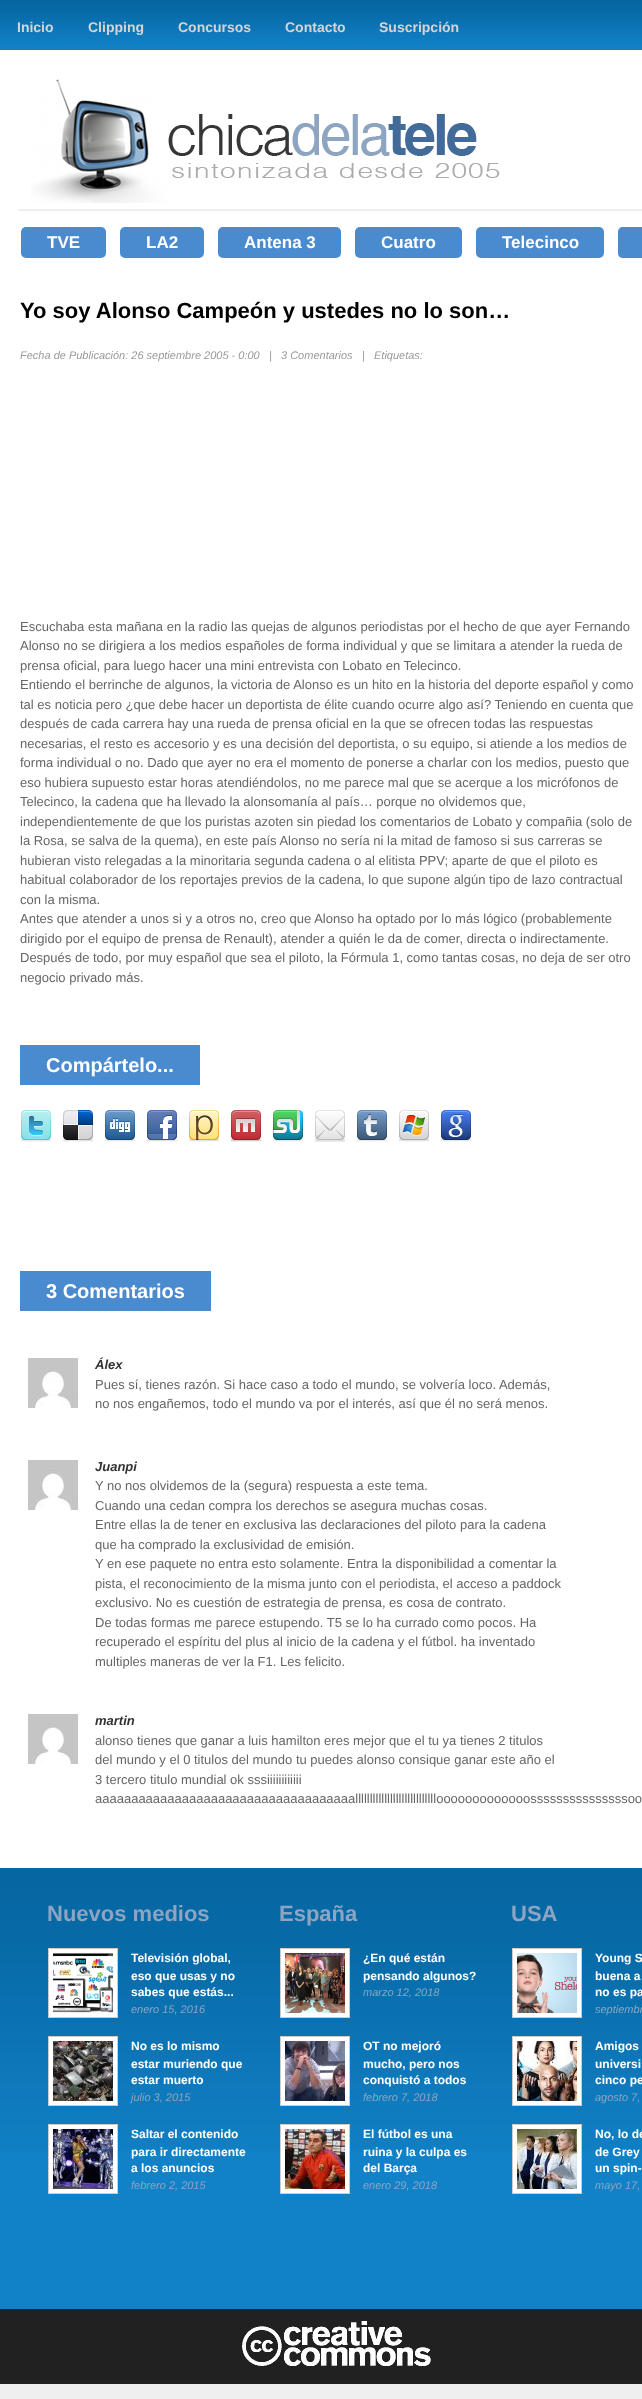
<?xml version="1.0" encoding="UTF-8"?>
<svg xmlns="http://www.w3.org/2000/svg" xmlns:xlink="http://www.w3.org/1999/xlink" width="642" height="2399">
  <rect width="100%" height="100%" fill="#efefef" />
  <image x="0" y="0" width="642" height="50" xlink:href="image1.png" />
  <rect y="50" width="642" height="1818" fill="#ffffff" />
  <rect x="18" y="209" width="624" height="2" fill="#efefef" />
  <image x="31" y="79" width="469" height="124" xlink:href="image2.png" />
  <rect x="21" y="227" width="85" height="31" rx="5" fill="#4a8ace" />
  <rect x="120" y="227" width="84" height="31" rx="5" fill="#4a8ace" />
  <rect x="218" y="227" width="123" height="31" rx="5" fill="#4a8ace" />
  <rect x="355" y="227" width="107" height="31" rx="5" fill="#4a8ace" />
  <rect x="476" y="227" width="128" height="31" rx="5" fill="#4a8ace" />
  <path d="M 623 227 h 19 v 31 h -19 c -3 0 -5 -2 -5 -5 v -21 c 0 -3 2 -5 5 -5 z" fill="#4a8ace" />
  <rect x="20" y="1045" width="180" height="40" fill="#4a8ace" />
  <image x="21" y="1110" width="30" height="32" xlink:href="image3.png" />
  <image x="62" y="1110" width="32" height="32" xlink:href="image4.png" />
  <image x="105" y="1110" width="30" height="32" xlink:href="image5.png" />
  <image x="146" y="1110" width="32" height="32" xlink:href="image6.png" />
  <image x="188" y="1110" width="32" height="32" xlink:href="image7.png" />
  <image x="230" y="1110" width="32" height="32" xlink:href="image8.png" />
  <image x="273" y="1110" width="30" height="32" xlink:href="image9.png" />
  <image x="314" y="1110" width="32" height="32" xlink:href="image10.png" />
  <image x="357" y="1110" width="30" height="32" xlink:href="image11.png" />
  <image x="398" y="1110" width="32" height="32" xlink:href="image12.png" />
  <image x="441" y="1110" width="30" height="32" xlink:href="image13.png" />
  <rect x="20" y="1271" width="191" height="40" fill="#4a8ace" />
  <image x="28" y="1358" width="50" height="50" xlink:href="image14.png" />
  <image x="28" y="1460" width="50" height="50" xlink:href="image14.png" />
  <image x="28" y="1714" width="50" height="50" xlink:href="image14.png" />
  <rect y="2152" width="642" height="157" fill="#1282c8" />
  <image x="0" y="1868" width="642" height="284" xlink:href="image15.png" />
  <rect x="48.5" y="1948.5" width="69" height="69" fill="#ffffff" stroke="#cccccc" />
  <image x="53" y="1953" width="60" height="60" xlink:href="image16.png" />
  <rect x="48.5" y="2036.5" width="69" height="69" fill="#ffffff" stroke="#cccccc" />
  <image x="53" y="2041" width="60" height="60" xlink:href="image17.png" />
  <rect x="48.5" y="2124.5" width="69" height="69" fill="#ffffff" stroke="#cccccc" />
  <image x="53" y="2129" width="60" height="60" xlink:href="image18.png" />
  <rect x="280.5" y="1948.5" width="69" height="69" fill="#ffffff" stroke="#cccccc" />
  <image x="285" y="1953" width="60" height="60" xlink:href="image19.png" />
  <rect x="280.5" y="2036.5" width="69" height="69" fill="#ffffff" stroke="#cccccc" />
  <image x="285" y="2041" width="60" height="60" xlink:href="image20.png" />
  <rect x="280.5" y="2124.5" width="69" height="69" fill="#ffffff" stroke="#cccccc" />
  <image x="285" y="2129" width="60" height="60" xlink:href="image21.png" />
  <rect x="512.5" y="1948.5" width="69" height="69" fill="#ffffff" stroke="#cccccc" />
  <image x="517" y="1953" width="60" height="60" xlink:href="image22.png" />
  <rect x="512.5" y="2036.5" width="69" height="69" fill="#ffffff" stroke="#cccccc" />
  <image x="517" y="2041" width="60" height="60" xlink:href="image23.png" />
  <rect x="512.5" y="2124.5" width="69" height="69" fill="#ffffff" stroke="#cccccc" />
  <image x="517" y="2129" width="60" height="60" xlink:href="image24.png" />
  <rect y="2309" width="642" height="75" fill="#212121" />
  <image x="242" y="2321" width="189" height="45" xlink:href="image25.png" />
  <text x="17" y="32" style="font-family: Liberation Sans; font-size: 14px; font-weight: bold; fill: #d5d5d5">Inicio</text>
  <text x="88" y="32" style="font-family: Liberation Sans; font-size: 14px; font-weight: bold; fill: #d5d5d5">Clipping</text>
  <text x="178" y="32" style="font-family: Liberation Sans; font-size: 14px; font-weight: bold; fill: #d5d5d5">Concursos</text>
  <text x="285" y="32" style="font-family: Liberation Sans; font-size: 14px; font-weight: bold; fill: #d5d5d5">Contacto</text>
  <text x="379" y="32" style="font-family: Liberation Sans; font-size: 14px; font-weight: bold; fill: #d5d5d5">Suscripción</text>
  <text x="47" y="248" style="font-family: Liberation Sans; font-size: 17px; font-weight: bold; fill: #ffffff">TVE</text>
  <text x="146" y="248" style="font-family: Liberation Sans; font-size: 17px; font-weight: bold; fill: #ffffff">LA2</text>
  <text x="244" y="248" style="font-family: Liberation Sans; font-size: 17px; font-weight: bold; fill: #ffffff">Antena 3</text>
  <text x="381" y="248" style="font-family: Liberation Sans; font-size: 17px; font-weight: bold; fill: #ffffff">Cuatro</text>
  <text x="502" y="248" style="font-family: Liberation Sans; font-size: 17px; font-weight: bold; fill: #ffffff">Telecinco</text>
  <text x="20" y="318" style="font-family: Liberation Sans; font-size: 22px; font-weight: bold; fill: #000000">Yo soy Alonso Campeón y ustedes no lo son…</text>
  <text x="20" y="359" style="font-family: Liberation Sans; font-size: 11px; font-style: italic; fill: #999999">Fecha de Publicación: 26 septiembre 2005 - 0:00</text>
  <text x="269" y="359" style="font-family: Liberation Sans; font-size: 11px; font-style: italic; fill: #999999">|</text>
  <text x="281" y="359" style="font-family: Liberation Sans; font-size: 11px; font-style: italic; fill: #999999">3 Comentarios</text>
  <text x="362" y="359" style="font-family: Liberation Sans; font-size: 11px; font-style: italic; fill: #999999">|</text>
  <text x="374" y="359" style="font-family: Liberation Sans; font-size: 11px; font-style: italic; fill: #999999">Etiquetas:</text>
  <text x="20" y="631" style="font-family: Liberation Sans; font-size: 13px; fill: #666666">Escuchaba esta mañana en la radio las quejas de algunos periodistas por el hecho de que ayer Fernando</text>
  <text x="20" y="650" style="font-family: Liberation Sans; font-size: 13px; fill: #666666">Alonso no se dirigiera a los medios españoles de forma individual y que se limitara a atender la rueda de</text>
  <text x="20" y="670" style="font-family: Liberation Sans; font-size: 13px; fill: #666666">prensa oficial, para luego hacer una mini entrevista con Lobato en Telecinco.</text>
  <text x="20" y="689" style="font-family: Liberation Sans; font-size: 13px; fill: #666666">Entiendo el berrinche de algunos, la victoria de Alonso es un hito en la historia del deporte español y como</text>
  <text x="20" y="709" style="font-family: Liberation Sans; font-size: 13px; fill: #666666">tal es noticia pero ¿que debe hacer un deportista de élite cuando ocurre algo así? Teniendo en cuenta que</text>
  <text x="20" y="728" style="font-family: Liberation Sans; font-size: 13px; fill: #666666">después de cada carrera hay una rueda de prensa oficial en la que se ofrecen todas las respuestas</text>
  <text x="20" y="748" style="font-family: Liberation Sans; font-size: 13px; fill: #666666">necesarias, el resto es accesorio y es una decisión del deportista, o su equipo, si atiende a los medios de</text>
  <text x="20" y="767" style="font-family: Liberation Sans; font-size: 13px; fill: #666666">forma individual o no. Dado que ayer no era el momento de ponerse a charlar con los medios, puesto que</text>
  <text x="20" y="787" style="font-family: Liberation Sans; font-size: 13px; fill: #666666">eso hubiera supuesto estar horas atendiéndolos, no me parece mal que se acerque a los micrófonos de</text>
  <text x="20" y="806" style="font-family: Liberation Sans; font-size: 13px; fill: #666666">Telecinco, la cadena que ha llevado la alonsomanía al país… porque no olvidemos que,</text>
  <text x="20" y="826" style="font-family: Liberation Sans; font-size: 13px; fill: #666666">independientemente de que los puristas azoten sin piedad los comentarios de Lobato y compañia (solo de</text>
  <text x="20" y="845" style="font-family: Liberation Sans; font-size: 13px; fill: #666666">la Rosa, se salva de la quema), en este país Alonso no sería ni la mitad de famoso si sus carreras se</text>
  <text x="20" y="865" style="font-family: Liberation Sans; font-size: 13px; fill: #666666">hubieran visto relegadas a la minoritaria segunda cadena o al elitista PPV; aparte de que el piloto es</text>
  <text x="20" y="884" style="font-family: Liberation Sans; font-size: 13px; fill: #666666">habitual colaborador de los reportajes previos de la cadena, lo que supone algún tipo de lazo contractual</text>
  <text x="20" y="904" style="font-family: Liberation Sans; font-size: 13px; fill: #666666">con la misma.</text>
  <text x="20" y="923" style="font-family: Liberation Sans; font-size: 13px; fill: #666666">Antes que atender a unos si y a otros no, creo que Alonso ha optado por lo más lógico (probablemente</text>
  <text x="20" y="943" style="font-family: Liberation Sans; font-size: 13px; fill: #666666">dirigido por el equipo de prensa de Renault), atender a quién le da de comer, directa o indirectamente.</text>
  <text x="20" y="962" style="font-family: Liberation Sans; font-size: 13px; fill: #666666">Después de todo, por muy español que sea el piloto, la Fórmula 1, como tantas cosas, no deja de ser otro</text>
  <text x="20" y="982" style="font-family: Liberation Sans; font-size: 13px; fill: #666666">negocio privado más.</text>
  <text x="46" y="1072" style="font-family: Liberation Sans; font-size: 20px; font-weight: bold; fill: #ffffff">Compártelo...</text>
  <text x="46" y="1298" style="font-family: Liberation Sans; font-size: 20px; font-weight: bold; fill: #ffffff">3 Comentarios</text>
  <text x="95" y="1369" style="font-family: Liberation Sans; font-size: 13px; font-weight: bold; font-style: italic; fill: #333333">Álex</text>
  <text x="95" y="1389" style="font-family: Liberation Sans; font-size: 13px; fill: #666666">Pues sí, tienes razón. Si hace caso a todo el mundo, se volvería loco. Además,</text>
  <text x="95" y="1408" style="font-family: Liberation Sans; font-size: 13px; fill: #666666">no nos engañemos, todo el mundo va por el interés, así que él no será menos.</text>
  <text x="95" y="1471" style="font-family: Liberation Sans; font-size: 13px; font-weight: bold; font-style: italic; fill: #333333">Juanpi</text>
  <text x="95" y="1490" style="font-family: Liberation Sans; font-size: 13px; fill: #666666">Y no nos olvidemos de la (segura) respuesta a este tema.</text>
  <text x="95" y="1510" style="font-family: Liberation Sans; font-size: 13px; fill: #666666">Cuando una cedan compra los derechos se asegura muchas cosas.</text>
  <text x="95" y="1529" style="font-family: Liberation Sans; font-size: 13px; fill: #666666">Entre ellas la de tener en exclusiva las declaraciones del piloto para la cadena</text>
  <text x="95" y="1549" style="font-family: Liberation Sans; font-size: 13px; fill: #666666">que ha comprado la exclusividad de emisión.</text>
  <text x="95" y="1568" style="font-family: Liberation Sans; font-size: 13px; fill: #666666">Y en ese paquete no entra esto solamente. Entra la disponibilidad a comentar la</text>
  <text x="95" y="1588" style="font-family: Liberation Sans; font-size: 13px; fill: #666666">pista, el reconocimiento de la misma junto con el periodista, el acceso a paddock</text>
  <text x="95" y="1607" style="font-family: Liberation Sans; font-size: 13px; fill: #666666">exclusivo. No es cuestión de estrategia de prensa, es cosa de contrato.</text>
  <text x="95" y="1627" style="font-family: Liberation Sans; font-size: 13px; fill: #666666">De todas formas me parece estupendo. T5 se lo ha currado como pocos. Ha</text>
  <text x="95" y="1646" style="font-family: Liberation Sans; font-size: 13px; fill: #666666">recuperado el espíritu del plus al inicio de la cadena y el fútbol. ha inventado</text>
  <text x="95" y="1666" style="font-family: Liberation Sans; font-size: 13px; fill: #666666">multiples maneras de ver la F1. Les felicito.</text>
  <text x="95" y="1725" style="font-family: Liberation Sans; font-size: 13px; font-weight: bold; font-style: italic; fill: #333333">martin</text>
  <text x="95" y="1745" style="font-family: Liberation Sans; font-size: 13px; fill: #666666">alonso tienes que ganar a luis hamilton eres mejor que el tu ya tienes 2 titulos</text>
  <text x="95" y="1764" style="font-family: Liberation Sans; font-size: 13px; fill: #666666">del mundo y el 0 titulos del mundo tu puedes alonso consique ganar este año el</text>
  <text x="95" y="1784" style="font-family: Liberation Sans; font-size: 13px; fill: #666666">3 tercero titulo mundial ok sssiiiiiiiiiiii</text>
  <text x="95" y="1803" style="font-family: Liberation Sans; font-size: 13px; fill: #666666">aaaaaaaaaaaaaaaaaaaaaaaaaaaaaaaaaaaallllllllllllllllllllllllllllooooooooooooosssssssssssssssoo</text>
  <text x="47" y="1921" style="font-family: Liberation Sans; font-size: 22px; font-weight: bold; fill: #8da5c1">Nuevos medios</text>
  <text x="131" y="1962" style="font-family: Liberation Sans; font-size: 12px; font-weight: bold; fill: #ffffff">Televisión global,</text>
  <text x="131" y="1980" style="font-family: Liberation Sans; font-size: 12px; font-weight: bold; fill: #ffffff">eso que usas y no</text>
  <text x="131" y="1996" style="font-family: Liberation Sans; font-size: 12px; font-weight: bold; fill: #ffffff">sabes que estás...</text>
  <text x="131" y="2013" style="font-family: Liberation Sans; font-size: 11px; font-style: italic; fill: #8da5c1">enero 15, 2016</text>
  <text x="131" y="2050" style="font-family: Liberation Sans; font-size: 12px; font-weight: bold; fill: #ffffff">No es lo mismo</text>
  <text x="131" y="2068" style="font-family: Liberation Sans; font-size: 12px; font-weight: bold; fill: #ffffff">estar muriendo que</text>
  <text x="131" y="2084" style="font-family: Liberation Sans; font-size: 12px; font-weight: bold; fill: #ffffff">estar muerto</text>
  <text x="131" y="2101" style="font-family: Liberation Sans; font-size: 11px; font-style: italic; fill: #8da5c1">julio 3, 2015</text>
  <text x="131" y="2138" style="font-family: Liberation Sans; font-size: 12px; font-weight: bold; fill: #ffffff">Saltar el contenido</text>
  <text x="131" y="2156" style="font-family: Liberation Sans; font-size: 12px; font-weight: bold; fill: #ffffff">para ir directamente</text>
  <text x="131" y="2172" style="font-family: Liberation Sans; font-size: 12px; font-weight: bold; fill: #ffffff">a los anuncios</text>
  <text x="131" y="2189" style="font-family: Liberation Sans; font-size: 11px; font-style: italic; fill: #8da5c1">febrero 2, 2015</text>
  <text x="279" y="1921" style="font-family: Liberation Sans; font-size: 22px; font-weight: bold; fill: #8da5c1">España</text>
  <text x="363" y="1962" style="font-family: Liberation Sans; font-size: 12px; font-weight: bold; fill: #ffffff">¿En qué están</text>
  <text x="363" y="1980" style="font-family: Liberation Sans; font-size: 12px; font-weight: bold; fill: #ffffff">pensando algunos?</text>
  <text x="363" y="1996" style="font-family: Liberation Sans; font-size: 11px; font-style: italic; fill: #8da5c1">marzo 12, 2018</text>
  <text x="363" y="2050" style="font-family: Liberation Sans; font-size: 12px; font-weight: bold; fill: #ffffff">OT no mejoró</text>
  <text x="363" y="2068" style="font-family: Liberation Sans; font-size: 12px; font-weight: bold; fill: #ffffff">mucho, pero nos</text>
  <text x="363" y="2084" style="font-family: Liberation Sans; font-size: 12px; font-weight: bold; fill: #ffffff">conquistó a todos</text>
  <text x="363" y="2101" style="font-family: Liberation Sans; font-size: 11px; font-style: italic; fill: #8da5c1">febrero 7, 2018</text>
  <text x="363" y="2138" style="font-family: Liberation Sans; font-size: 12px; font-weight: bold; fill: #ffffff">El fútbol es una</text>
  <text x="363" y="2156" style="font-family: Liberation Sans; font-size: 12px; font-weight: bold; fill: #ffffff">ruina y la culpa es</text>
  <text x="363" y="2172" style="font-family: Liberation Sans; font-size: 12px; font-weight: bold; fill: #ffffff">del Barça</text>
  <text x="363" y="2189" style="font-family: Liberation Sans; font-size: 11px; font-style: italic; fill: #8da5c1">enero 29, 2018</text>
  <text x="511" y="1921" style="font-family: Liberation Sans; font-size: 22px; font-weight: bold; fill: #8da5c1">USA</text>
  <text x="595" y="1962" style="font-family: Liberation Sans; font-size: 12px; font-weight: bold; fill: #ffffff">Young S</text>
  <text x="595" y="1980" style="font-family: Liberation Sans; font-size: 12px; font-weight: bold; fill: #ffffff">buena a</text>
  <text x="595" y="1996" style="font-family: Liberation Sans; font-size: 12px; font-weight: bold; fill: #ffffff">no es pa</text>
  <text x="595" y="2013" style="font-family: Liberation Sans; font-size: 11px; font-style: italic; fill: #8da5c1">septiembr</text>
  <text x="595" y="2050" style="font-family: Liberation Sans; font-size: 12px; font-weight: bold; fill: #ffffff">Amigos</text>
  <text x="595" y="2068" style="font-family: Liberation Sans; font-size: 12px; font-weight: bold; fill: #ffffff">universi</text>
  <text x="595" y="2084" style="font-family: Liberation Sans; font-size: 12px; font-weight: bold; fill: #ffffff">cinco pe</text>
  <text x="595" y="2101" style="font-family: Liberation Sans; font-size: 11px; font-style: italic; fill: #8da5c1">agosto 7,</text>
  <text x="595" y="2138" style="font-family: Liberation Sans; font-size: 12px; font-weight: bold; fill: #ffffff">No, lo de</text>
  <text x="595" y="2156" style="font-family: Liberation Sans; font-size: 12px; font-weight: bold; fill: #ffffff">de Grey</text>
  <text x="595" y="2172" style="font-family: Liberation Sans; font-size: 12px; font-weight: bold; fill: #ffffff">un spin-</text>
  <text x="595" y="2189" style="font-family: Liberation Sans; font-size: 11px; font-style: italic; fill: #8da5c1">mayo 17,</text>
</svg>
